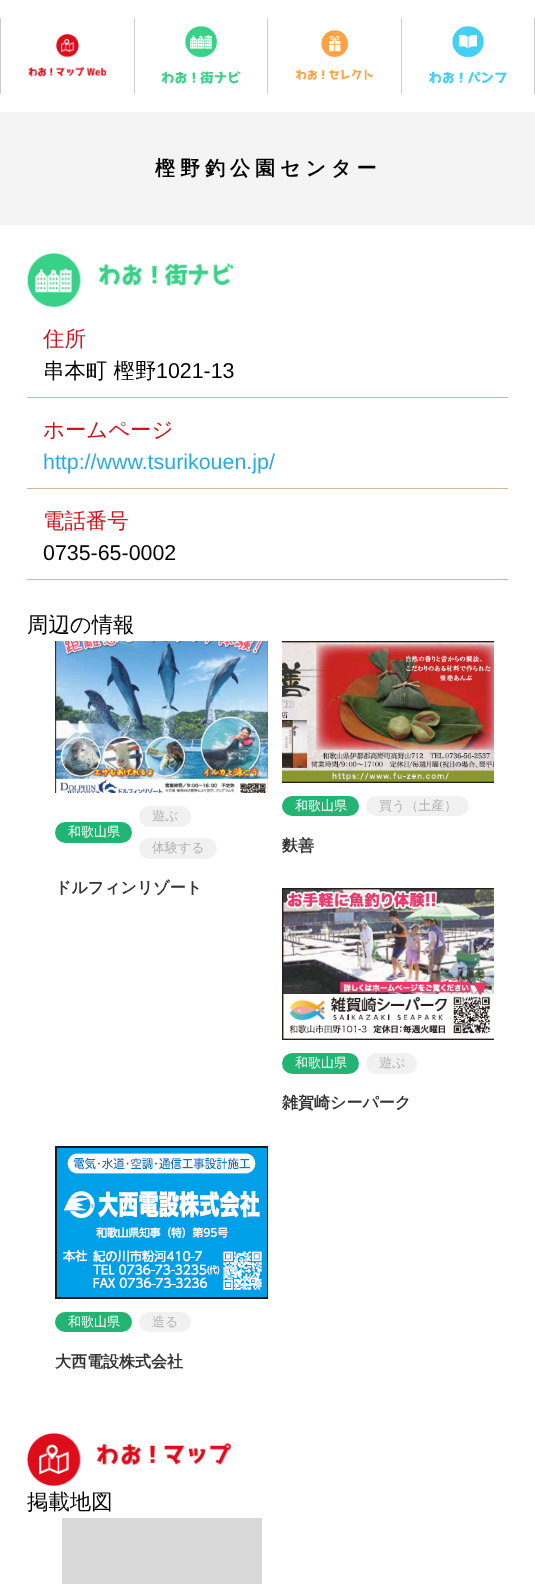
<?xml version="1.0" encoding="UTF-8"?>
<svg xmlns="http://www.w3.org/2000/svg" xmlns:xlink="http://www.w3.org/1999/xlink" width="535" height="1584">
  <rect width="100%" height="100%" fill="#ffffff" />
  <rect y="18" width="1" height="76" fill="#cccccc" />
  <rect x="134" y="18" width="1" height="76" fill="#cccccc" />
  <image x="28" y="34" width="79" height="43" xlink:href="image1.png" />
  <rect x="267" y="18" width="1" height="76" fill="#cccccc" />
  <image x="161" y="26" width="80" height="58" xlink:href="image2.png" />
  <rect x="401" y="18" width="1" height="76" fill="#cccccc" />
  <image x="295" y="30" width="78" height="50" xlink:href="image3.png" />
  <rect x="534" y="18" width="1" height="76" fill="#cccccc" />
  <image x="429" y="26" width="78" height="58" xlink:href="image4.png" />
  <rect y="112" width="535" height="113" fill="#f4f4f4" />
  <image x="27" y="253" width="207" height="54" xlink:href="image5.png" />
  <rect x="27" y="397" width="481" height="1" fill="#ceba97" />
  <rect x="27" y="488" width="481" height="1" fill="#ceba97" />
  <rect x="27" y="579" width="481" height="1" fill="#ceba97" />
  <image x="55" y="641" width="213" height="152" xlink:href="image6.png" />
  <rect x="55" y="822" width="77" height="21" rx="10.5" fill="#22b473" />
  <rect x="139" y="806" width="52" height="21" rx="10.5" fill="#f1f1f1" />
  <rect x="139" y="838" width="78" height="21" rx="10.5" fill="#f1f1f1" />
  <image x="282" y="641" width="212" height="142" xlink:href="image7.png" />
  <rect x="282" y="796" width="77" height="20" rx="10" fill="#22b473" />
  <rect x="366" y="796" width="103" height="20" rx="10" fill="#f1f1f1" />
  <image x="282" y="888" width="212" height="152" xlink:href="image8.png" />
  <rect x="282" y="1053" width="77" height="21" rx="10.5" fill="#22b473" />
  <rect x="366" y="1053" width="51" height="21" rx="10.5" fill="#f1f1f1" />
  <image x="55" y="1146" width="213" height="153" xlink:href="image9.png" />
  <rect x="55" y="1312" width="77" height="20" rx="10" fill="#22b473" />
  <rect x="139" y="1312" width="52" height="20" rx="10" fill="#f1f1f1" />
  <image x="27" y="1433" width="205" height="53" xlink:href="image10.png" />
  <rect x="62" y="1518" width="200" height="66" fill="#d8d8d8" />
  <text x="155" y="175" style="font-family: WenQuanYi Zen Hei; font-size: 20px; font-weight: bold; letter-spacing: 5px; fill: #000000">樫野釣公園センター</text>
  <text x="43" y="346" style="font-family: WenQuanYi Zen Hei; font-size: 21.4px; font-weight: 500; fill: #cf141d">住所</text>
  <text x="43" y="378" style="font-family: WenQuanYi Zen Hei; font-size: 21.4px; font-weight: 500; fill: #000000">串本町 樫野</text>
  <text x="156" y="378" style="font-family: Liberation Sans; font-size: 21.4px; fill: #000000">1021-13</text>
  <text x="43" y="437" style="font-family: WenQuanYi Zen Hei; font-size: 21.4px; font-weight: 500; fill: #cf141d">ホームページ</text>
  <text x="43" y="469" style="font-family: Liberation Sans; font-size: 21.4px; fill: #29abe2">http://www.tsurikouen.jp/</text>
  <text x="43" y="528" style="font-family: WenQuanYi Zen Hei; font-size: 21.4px; font-weight: 500; fill: #cf141d">電話番号</text>
  <text x="43" y="560" style="font-family: Liberation Sans; font-size: 21.4px; fill: #000000">0735-65-0002</text>
  <text x="27" y="632" style="font-family: WenQuanYi Zen Hei; font-size: 21.4px; font-weight: 500; fill: #000000">周辺の情報</text>
  <text x="68" y="836" style="font-family: WenQuanYi Zen Hei; font-size: 13px; font-weight: 500; fill: #ffffff">和歌山県</text>
  <text x="152" y="820" style="font-family: WenQuanYi Zen Hei; font-size: 13px; font-weight: 500; fill: #b2b2b2">遊ぶ</text>
  <text x="152" y="852" style="font-family: WenQuanYi Zen Hei; font-size: 13px; font-weight: 500; fill: #b2b2b2">体験する</text>
  <text x="55" y="893" style="font-family: WenQuanYi Zen Hei; font-size: 16px; font-weight: bold; fill: #333333">ドルフィンリゾート</text>
  <text x="295" y="810" style="font-family: WenQuanYi Zen Hei; font-size: 13px; font-weight: 500; fill: #ffffff">和歌山県</text>
  <text x="379" y="810" style="font-family: WenQuanYi Zen Hei; font-size: 13px; font-weight: 500; fill: #b2b2b2">買う（土産）</text>
  <text x="282" y="851" style="font-family: WenQuanYi Zen Hei; font-size: 16px; font-weight: bold; fill: #333333">麩善</text>
  <text x="295" y="1067" style="font-family: WenQuanYi Zen Hei; font-size: 13px; font-weight: 500; fill: #ffffff">和歌山県</text>
  <text x="379" y="1067" style="font-family: WenQuanYi Zen Hei; font-size: 13px; font-weight: 500; fill: #b2b2b2">遊ぶ</text>
  <text x="282" y="1108" style="font-family: WenQuanYi Zen Hei; font-size: 16px; font-weight: bold; fill: #333333">雑賀崎シーパーク</text>
  <text x="68" y="1326" style="font-family: WenQuanYi Zen Hei; font-size: 13px; font-weight: 500; fill: #ffffff">和歌山県</text>
  <text x="152" y="1326" style="font-family: WenQuanYi Zen Hei; font-size: 13px; font-weight: 500; fill: #b2b2b2">造る</text>
  <text x="55" y="1367" style="font-family: WenQuanYi Zen Hei; font-size: 16px; font-weight: bold; fill: #333333">大西電設株式会社</text>
  <text x="27" y="1509" style="font-family: WenQuanYi Zen Hei; font-size: 21.4px; font-weight: 500; fill: #000000">掲載地図</text>
</svg>
